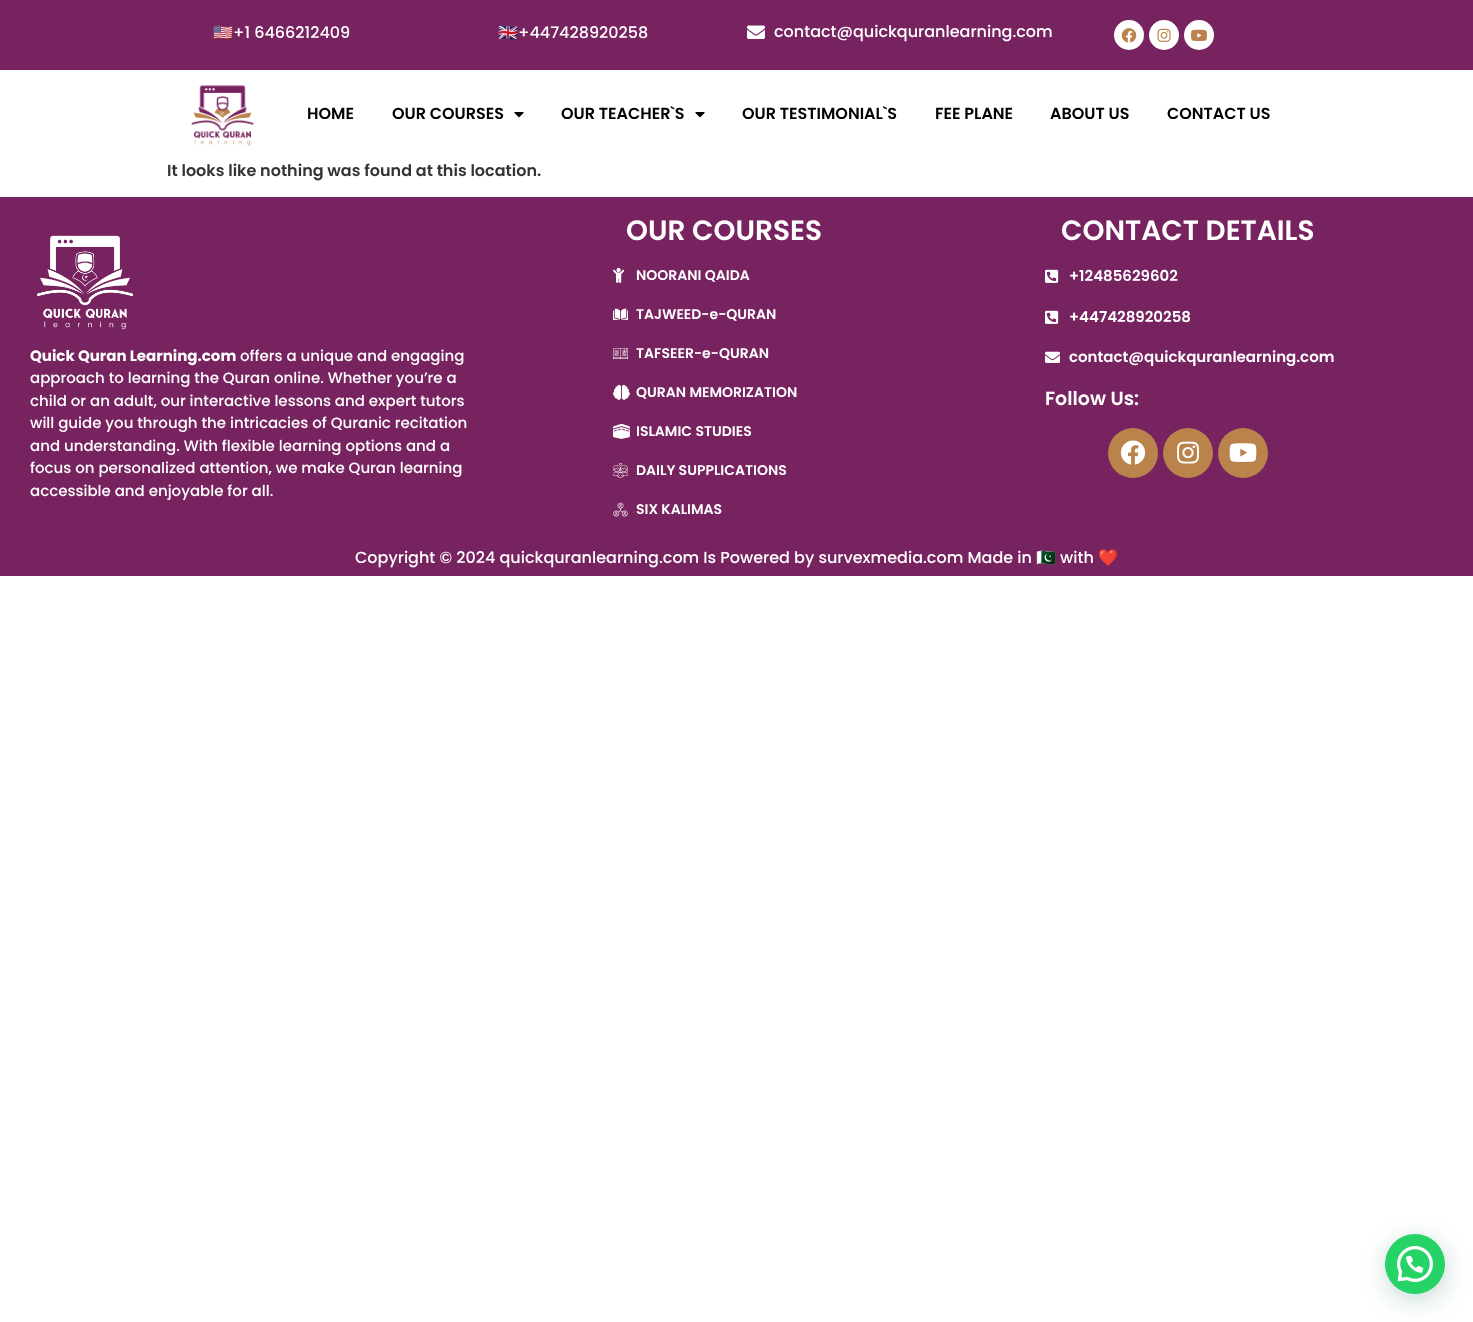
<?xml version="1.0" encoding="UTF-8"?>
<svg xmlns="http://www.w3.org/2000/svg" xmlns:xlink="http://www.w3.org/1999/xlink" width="1473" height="1322">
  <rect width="100%" height="100%" fill="#ffffff" />
  <rect width="1473" height="70" fill="#77235f" />
  <image x="747" y="25" width="18" height="14" xlink:href="image1.png" />
  <circle cx="1129" cy="35" r="15" fill="#ffffff" />
  <image x="1121" y="28" width="16" height="15" xlink:href="image2.png" />
  <circle cx="1164" cy="35" r="15" fill="#ffffff" />
  <image x="1157" y="28" width="14" height="14" xlink:href="image3.png" />
  <circle cx="1199" cy="35" r="15" fill="#ffffff" />
  <image x="1191" y="29" width="16" height="12" xlink:href="image4.png" />
  <image x="191" y="85" width="63" height="61" xlink:href="image5.png" />
  <image x="514" y="112" width="10" height="6" xlink:href="image6.png" />
  <image x="695" y="112" width="10" height="6" xlink:href="image6.png" />
  <rect y="197" width="1473" height="379" fill="#77235f" />
  <image x="613" y="267" width="12" height="16" xlink:href="image7.png" />
  <image x="613" y="308" width="15" height="13" xlink:href="image8.png" />
  <image x="613" y="348" width="15" height="11" xlink:href="image9.png" />
  <image x="613" y="384" width="17" height="16" xlink:href="image10.png" />
  <image x="613" y="423" width="17" height="16" xlink:href="image11.png" />
  <image x="613" y="463" width="15" height="15" xlink:href="image12.png" />
  <image x="613" y="502" width="15" height="15" xlink:href="image13.png" />
  <image x="1045" y="269" width="14" height="14" xlink:href="image14.png" />
  <image x="1045" y="310" width="14" height="14" xlink:href="image14.png" />
  <image x="1045" y="351" width="15" height="12" xlink:href="image15.png" />
  <circle cx="1133" cy="453" r="25" fill="#ba834b" />
  <image x="1120" y="440" width="26" height="25" xlink:href="image16.png" />
  <circle cx="1188" cy="453" r="25" fill="#ba834b" />
  <image x="1177" y="441" width="22" height="23" xlink:href="image17.png" />
  <circle cx="1243" cy="453" r="25" fill="#ba834b" />
  <image x="1229" y="443" width="28" height="19" xlink:href="image18.png" />
  <image x="37" y="235" width="96" height="95" xlink:href="image19.png" />
  <rect x="1386" y="1240" width="60" height="60" rx="30" fill="#075e54" fill-opacity="0.24" filter="blur(12px)" />
  <circle cx="1415" cy="1264" r="30" fill="#25d366" />
  <image x="1397" y="1246" width="36" height="36" xlink:href="image20.png" />
  <text x="213" y="38" style="font-family: Noto Color Emoji; font-size: 16px; fill: #ffffff">🇺🇸</text>
  <text x="233" y="38" style="font-family: Poppins; font-size: 16px; font-weight: 500; fill: #ffffff">+1 6466212409</text>
  <text x="498" y="38" style="font-family: Noto Color Emoji; font-size: 16px; fill: #ffffff">🇬🇧</text>
  <text x="518" y="38" style="font-family: Poppins; font-size: 16px; font-weight: 500; fill: #ffffff">+447428920258</text>
  <text x="774" y="37" style="font-family: Poppins; font-size: 16px; font-weight: 500; fill: #ffffff">contact@quickquranlearning.com</text>
  <text x="307" y="119" style="font-family: Poppins; font-size: 16px; font-weight: 600; fill: #000000">HOME</text>
  <text x="392" y="119" style="font-family: Poppins; font-size: 16px; font-weight: 600; fill: #000000">OUR COURSES</text>
  <text x="561" y="119" style="font-family: Poppins; font-size: 16px; font-weight: 600; fill: #000000">OUR TEACHER`S</text>
  <text x="742" y="119" style="font-family: Poppins; font-size: 16px; font-weight: 600; fill: #000000">OUR TESTIMONIAL`S</text>
  <text x="935" y="119" style="font-family: Poppins; font-size: 16px; font-weight: 600; fill: #000000">FEE PLANE</text>
  <text x="1050" y="119" style="font-family: Poppins; font-size: 16px; font-weight: 600; fill: #000000">ABOUT US</text>
  <text x="1167" y="119" style="font-family: Poppins; font-size: 16px; font-weight: 600; fill: #000000">CONTACT US</text>
  <text x="167" y="176" style="font-family: Poppins; font-size: 16px; font-weight: 600; fill: #333333">It looks like nothing was found at this location.</text>
  <text x="626" y="240" style="font-family: Poppins; font-size: 28px; font-weight: 600; fill: #ffffff">OUR COURSES</text>
  <text x="636" y="280" style="font-family: Poppins; font-size: 14px; font-weight: 600; fill: #ffffff">NOORANI QAIDA</text>
  <text x="636" y="319" style="font-family: Poppins; font-size: 14px; font-weight: 600; fill: #ffffff">TAJWEED-e-QURAN</text>
  <text x="636" y="358" style="font-family: Poppins; font-size: 14px; font-weight: 600; fill: #ffffff">TAFSEER-e-QURAN</text>
  <text x="636" y="397" style="font-family: Poppins; font-size: 14px; font-weight: 600; fill: #ffffff">QURAN MEMORIZATION</text>
  <text x="636" y="436" style="font-family: Poppins; font-size: 14px; font-weight: 600; fill: #ffffff">ISLAMIC STUDIES</text>
  <text x="636" y="475" style="font-family: Poppins; font-size: 14px; font-weight: 600; fill: #ffffff">DAILY SUPPLICATIONS</text>
  <text x="636" y="514" style="font-family: Poppins; font-size: 14px; font-weight: 600; fill: #ffffff">SIX KALIMAS</text>
  <text x="1061" y="240" style="font-family: Poppins; font-size: 28px; font-weight: 600; fill: #ffffff">CONTACT DETAILS</text>
  <text x="1069" y="281" style="font-family: Poppins; font-size: 15px; font-weight: 600; fill: #ffffff">+12485629602</text>
  <text x="1069" y="322" style="font-family: Poppins; font-size: 15px; font-weight: 600; fill: #ffffff">+447428920258</text>
  <text x="1069" y="362" style="font-family: Poppins; font-size: 15px; font-weight: 600; fill: #ffffff">contact@quickquranlearning.com</text>
  <text x="1045" y="405" style="font-family: Poppins; font-size: 19px; font-weight: 600; fill: #ffffff">Follow Us:</text>
  <text x="30" y="361" style="font-family: Poppins; font-size: 15px; font-weight: bold; fill: #ffffff">Quick Quran Learning.com</text>
  <text x="240" y="361" style="font-family: Poppins; font-size: 15px; font-weight: 500; fill: #ffffff">offers a unique and engaging</text>
  <text x="30" y="383" style="font-family: Poppins; font-size: 15px; font-weight: 500; fill: #ffffff">approach to learning the Quran online. Whether you’re a</text>
  <text x="30" y="406" style="font-family: Poppins; font-size: 15px; font-weight: 500; fill: #ffffff">child or an adult, our interactive lessons and expert tutors</text>
  <text x="30" y="428" style="font-family: Poppins; font-size: 15px; font-weight: 500; fill: #ffffff">will guide you through the intricacies of Quranic recitation</text>
  <text x="30" y="451" style="font-family: Poppins; font-size: 15px; font-weight: 500; fill: #ffffff">and understanding. With flexible learning options and a</text>
  <text x="30" y="473" style="font-family: Poppins; font-size: 15px; font-weight: 500; fill: #ffffff">focus on personalized attention, we make Quran learning</text>
  <text x="30" y="496" style="font-family: Poppins; font-size: 15px; font-weight: 500; fill: #ffffff">accessible and enjoyable for all.</text>
  <text x="355" y="563" style="font-family: Poppins; font-size: 16px; font-weight: 500; fill: #ffffff">Copyright © 2024 quickquranlearning.com Is Powered by survexmedia.com Made in</text>
  <text x="1036" y="563" style="font-family: Noto Color Emoji; font-size: 16px; fill: #ffffff">🇵🇰</text>
  <text x="1060" y="563" style="font-family: Poppins; font-size: 16px; font-weight: 500; fill: #ffffff">with</text>
  <text x="1098" y="563" style="font-family: Noto Color Emoji; font-size: 16px; fill: #ffffff">❤️</text>
</svg>
